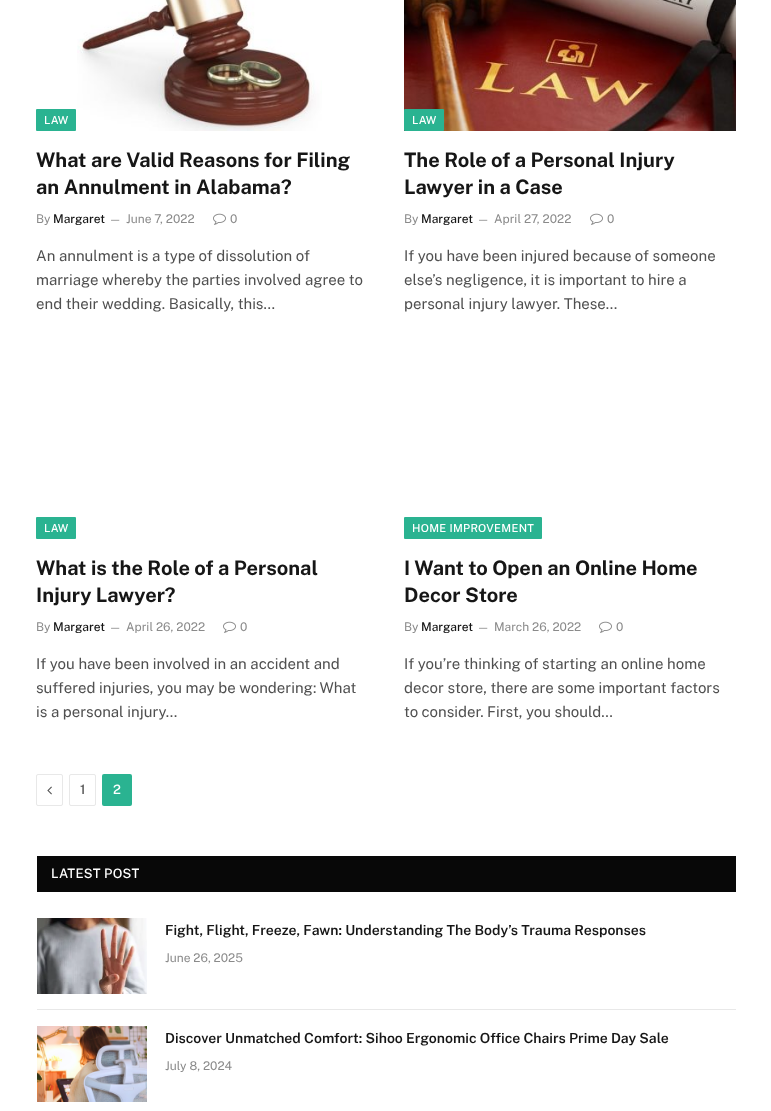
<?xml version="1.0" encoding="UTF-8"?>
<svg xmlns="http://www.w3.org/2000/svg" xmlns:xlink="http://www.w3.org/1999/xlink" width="771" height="1111">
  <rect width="100%" height="100%" fill="#ffffff" />
  <rect x="36" y="109" width="40" height="22" rx="1" fill="#2ab391" />
  <image x="77" y="0" width="245" height="131" xlink:href="image1.png" />
  <image x="213" y="213" width="13" height="12" xlink:href="image2.png" />
  <image x="404" y="0" width="332" height="131" xlink:href="image3.png" />
  <rect x="404" y="109" width="40" height="22" rx="1" fill="#2ab391" />
  <image x="590" y="213" width="13" height="12" xlink:href="image2.png" />
  <rect x="36" y="517" width="40" height="22" rx="1" fill="#2ab391" />
  <image x="223" y="621" width="13" height="12" xlink:href="image2.png" />
  <rect x="404" y="517" width="138" height="22" rx="1" fill="#2ab391" />
  <image x="599" y="621" width="13" height="12" xlink:href="image2.png" />
  <rect x="36.5" y="774.5" width="26" height="31" rx="1.5" fill="none" stroke="#e8e8e8" />
  <image x="47" y="786" width="5" height="9" xlink:href="image4.png" />
  <rect x="69.5" y="774.5" width="26" height="31" rx="1.5" fill="none" stroke="#e8e8e8" />
  <rect x="102" y="774" width="30" height="32" rx="2" fill="#2ab391" />
  <rect x="37" y="856" width="699" height="36" fill="#080808" />
  <image x="37" y="918" width="110" height="76" xlink:href="image5.png" />
  <rect x="37" y="1009" width="699" height="1" fill="#e8e8e8" />
  <image x="37" y="1026" width="110" height="76" xlink:href="image6.png" />
  <text x="44" y="124" style="font-family: Public Sans; font-size: 11px; font-weight: 500; letter-spacing: 0.3px; fill: #ffffff">LAW</text>
  <text x="36" y="167" style="font-family: Public Sans; font-size: 20px; font-weight: bold; fill: #161616">What are Valid Reasons for Filing</text>
  <text x="36" y="194" style="font-family: Public Sans; font-size: 20px; font-weight: bold; fill: #161616">an Annulment in Alabama?</text>
  <text x="36" y="223" style="font-family: Public Sans; font-size: 12px; fill: #8a8a8a">By</text>
  <text x="53" y="223" style="font-family: Public Sans; font-size: 12px; font-weight: 500; fill: #161616">Margaret</text>
  <text x="109" y="223" style="font-family: Public Sans; font-size: 11px; fill: #8a8a8a">—</text>
  <text x="126" y="223" style="font-family: Public Sans; font-size: 12px; fill: #8a8a8a">June 7, 2022</text>
  <text x="230" y="223" style="font-family: Public Sans; font-size: 12px; fill: #8a8a8a">0</text>
  <text x="36" y="261" style="font-family: Public Sans; font-size: 15px; fill: #505050">An annulment is a type of dissolution of</text>
  <text x="36" y="285" style="font-family: Public Sans; font-size: 15px; fill: #505050">marriage whereby the parties involved agree to</text>
  <text x="36" y="309" style="font-family: Public Sans; font-size: 15px; fill: #505050">end their wedding. Basically, this…</text>
  <text x="412" y="124" style="font-family: Public Sans; font-size: 11px; font-weight: 500; letter-spacing: 0.3px; fill: #ffffff">LAW</text>
  <text x="404" y="167" style="font-family: Public Sans; font-size: 20px; font-weight: bold; fill: #161616">The Role of a Personal Injury</text>
  <text x="404" y="194" style="font-family: Public Sans; font-size: 20px; font-weight: bold; fill: #161616">Lawyer in a Case</text>
  <text x="404" y="223" style="font-family: Public Sans; font-size: 12px; fill: #8a8a8a">By</text>
  <text x="421" y="223" style="font-family: Public Sans; font-size: 12px; font-weight: 500; fill: #161616">Margaret</text>
  <text x="477" y="223" style="font-family: Public Sans; font-size: 11px; fill: #8a8a8a">—</text>
  <text x="494" y="223" style="font-family: Public Sans; font-size: 12px; fill: #8a8a8a">April 27, 2022</text>
  <text x="607" y="223" style="font-family: Public Sans; font-size: 12px; fill: #8a8a8a">0</text>
  <text x="404" y="261" style="font-family: Public Sans; font-size: 15px; fill: #505050">If you have been injured because of someone</text>
  <text x="404" y="285" style="font-family: Public Sans; font-size: 15px; fill: #505050">else’s negligence, it is important to hire a</text>
  <text x="404" y="309" style="font-family: Public Sans; font-size: 15px; fill: #505050">personal injury lawyer. These…</text>
  <text x="44" y="532" style="font-family: Public Sans; font-size: 11px; font-weight: 500; letter-spacing: 0.3px; fill: #ffffff">LAW</text>
  <text x="36" y="575" style="font-family: Public Sans; font-size: 20px; font-weight: bold; fill: #161616">What is the Role of a Personal</text>
  <text x="36" y="602" style="font-family: Public Sans; font-size: 20px; font-weight: bold; fill: #161616">Injury Lawyer?</text>
  <text x="36" y="631" style="font-family: Public Sans; font-size: 12px; fill: #8a8a8a">By</text>
  <text x="53" y="631" style="font-family: Public Sans; font-size: 12px; font-weight: 500; fill: #161616">Margaret</text>
  <text x="109" y="631" style="font-family: Public Sans; font-size: 11px; fill: #8a8a8a">—</text>
  <text x="126" y="631" style="font-family: Public Sans; font-size: 12px; fill: #8a8a8a">April 26, 2022</text>
  <text x="240" y="631" style="font-family: Public Sans; font-size: 12px; fill: #8a8a8a">0</text>
  <text x="36" y="669" style="font-family: Public Sans; font-size: 15px; fill: #505050">If you have been involved in an accident and</text>
  <text x="36" y="693" style="font-family: Public Sans; font-size: 15px; fill: #505050">suffered injuries, you may be wondering: What</text>
  <text x="36" y="717" style="font-family: Public Sans; font-size: 15px; fill: #505050">is a personal injury…</text>
  <text x="412" y="532" style="font-family: Public Sans; font-size: 11px; font-weight: 500; letter-spacing: 0.3px; fill: #ffffff">HOME IMPROVEMENT</text>
  <text x="404" y="575" style="font-family: Public Sans; font-size: 20px; font-weight: bold; fill: #161616">I Want to Open an Online Home</text>
  <text x="404" y="602" style="font-family: Public Sans; font-size: 20px; font-weight: bold; fill: #161616">Decor Store</text>
  <text x="404" y="631" style="font-family: Public Sans; font-size: 12px; fill: #8a8a8a">By</text>
  <text x="421" y="631" style="font-family: Public Sans; font-size: 12px; font-weight: 500; fill: #161616">Margaret</text>
  <text x="477" y="631" style="font-family: Public Sans; font-size: 11px; fill: #8a8a8a">—</text>
  <text x="494" y="631" style="font-family: Public Sans; font-size: 12px; fill: #8a8a8a">March 26, 2022</text>
  <text x="616" y="631" style="font-family: Public Sans; font-size: 12px; fill: #8a8a8a">0</text>
  <text x="404" y="669" style="font-family: Public Sans; font-size: 15px; fill: #505050">If you’re thinking of starting an online home</text>
  <text x="404" y="693" style="font-family: Public Sans; font-size: 15px; fill: #505050">decor store, there are some important factors</text>
  <text x="404" y="717" style="font-family: Public Sans; font-size: 15px; fill: #505050">to consider. First, you should…</text>
  <text x="80" y="794" style="font-family: Public Sans; font-size: 13px; font-weight: 500; fill: #505050">1</text>
  <text x="113" y="794" style="font-family: Public Sans; font-size: 13px; font-weight: 500; fill: #ffffff">2</text>
  <text x="51" y="878" style="font-family: Public Sans; font-size: 13px; font-weight: 500; letter-spacing: 0.25px; fill: #ffffff">LATEST POST</text>
  <text x="165" y="935" style="font-family: Public Sans; font-size: 14px; font-weight: 600; fill: #161616">Fight, Flight, Freeze, Fawn: Understanding The Body’s Trauma Responses</text>
  <text x="165" y="962" style="font-family: Public Sans; font-size: 12px; fill: #8a8a8a">June 26, 2025</text>
  <text x="165" y="1043" style="font-family: Public Sans; font-size: 14px; font-weight: 600; fill: #161616">Discover Unmatched Comfort: Sihoo Ergonomic Office Chairs Prime Day Sale</text>
  <text x="165" y="1070" style="font-family: Public Sans; font-size: 12px; fill: #8a8a8a">July 8, 2024</text>
</svg>
